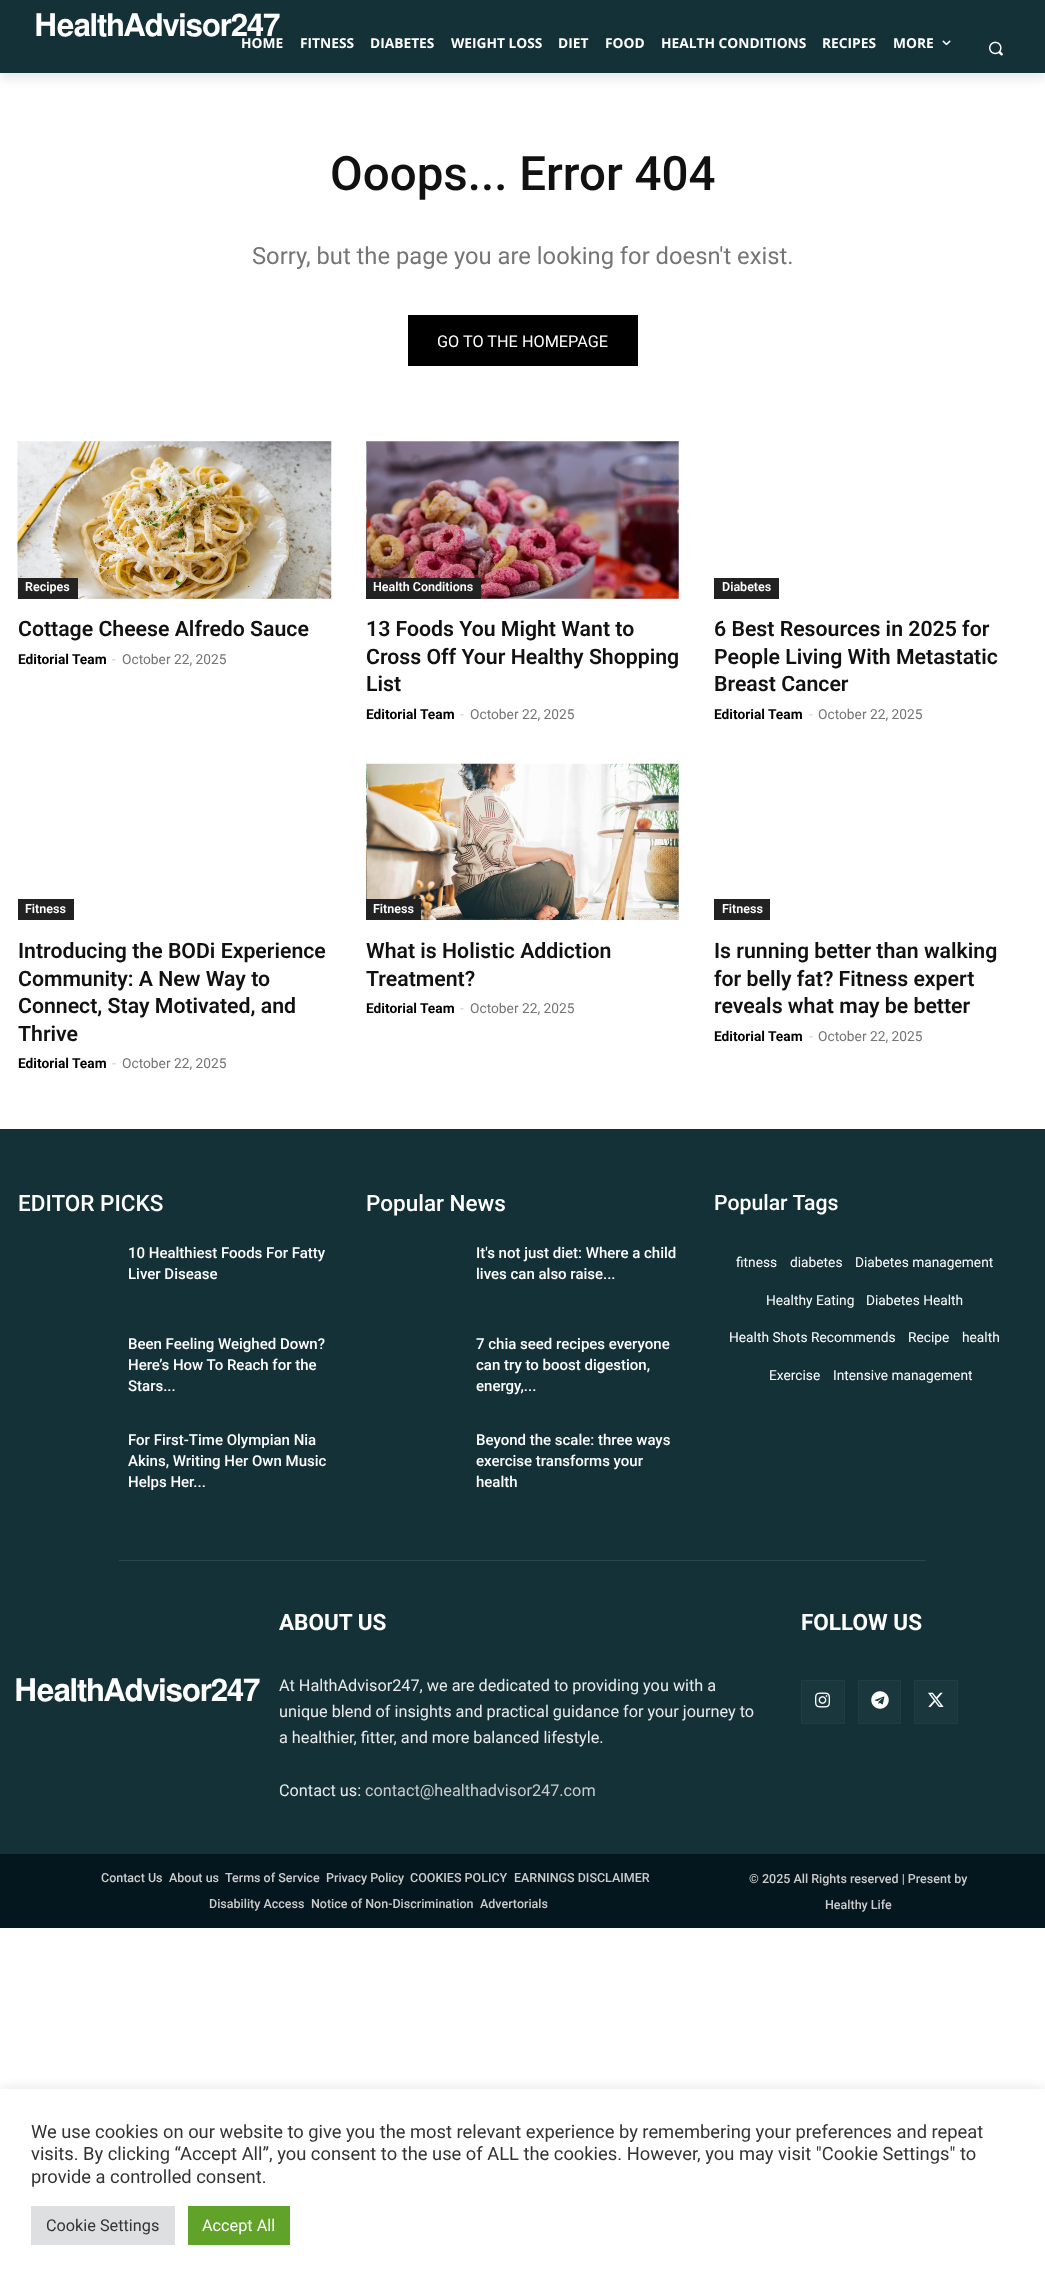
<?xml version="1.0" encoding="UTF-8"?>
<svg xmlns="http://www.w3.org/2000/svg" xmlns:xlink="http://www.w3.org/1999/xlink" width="1045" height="2282">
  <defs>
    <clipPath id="clip1"><path d="M 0 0 h 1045 v 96 h -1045 z m 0 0 h 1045 v 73 h -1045 z" clip-rule="evenodd" /></clipPath>
    <clipPath id="clip2"><rect x="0" y="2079" width="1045" height="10" /></clipPath>
  </defs>
  <rect width="100%" height="100%" fill="#ffffff" />
  <rect width="1045" height="73" fill="#133137" />
  <g clip-path="url(#clip1)">
    <rect y="8" width="1045" height="72" fill="#000000" fill-opacity="0.08" filter="blur(5px)" />
  </g>
  <image x="942" y="40" width="9" height="6" xlink:href="image1.png" />
  <image x="989" y="41" width="14" height="15" xlink:href="image2.png" />
  <rect x="408" y="315" width="230" height="51" fill="#000000" />
  <image x="17" y="441" width="315" height="158" xlink:href="image3.png" />
  <rect x="18" y="578" width="60" height="21" fill="#222222" />
  <image x="366" y="441" width="313" height="158" xlink:href="image4.png" />
  <rect x="366" y="578" width="115" height="21" fill="#222222" />
  <rect x="714" y="578" width="65" height="21" fill="#222222" />
  <rect x="18" y="899" width="56" height="21" fill="#222222" />
  <image x="366" y="763" width="313" height="157" xlink:href="image5.png" />
  <rect x="366" y="899" width="55" height="21" fill="#222222" />
  <rect x="714" y="899" width="56" height="21" fill="#222222" />
  <rect y="1129" width="1045" height="725" fill="#133137" />
  <rect x="119" y="1560" width="807" height="1" fill="#2b464b" />
  <rect x="801.5" y="1680.5" width="43" height="43" fill="#1a373d" stroke="#213d43" />
  <image x="815" y="1692" width="15" height="16" xlink:href="image6.png" />
  <rect x="858.5" y="1680.5" width="42" height="43" fill="#1a373d" stroke="#213d43" />
  <image x="871" y="1691" width="18" height="18" xlink:href="image7.png" />
  <rect x="914.5" y="1680.5" width="43" height="43" fill="#1a373d" stroke="#213d43" />
  <image x="928" y="1692" width="16" height="15" xlink:href="image8.png" />
  <rect y="1854" width="1045" height="74" fill="#05171e" />
  <g clip-path="url(#clip2)">
    <rect y="2088" width="1045" height="193" fill="#acabab" fill-opacity="0.3" filter="blur(6px)" />
  </g>
  <rect x="31" y="2206" width="144" height="39" fill="#dedfe0" />
  <rect x="188" y="2206" width="102" height="39" fill="#61a229" />
  <text x="34" y="36" style="font-family: FreeSans; font-size: 31.25px; letter-spacing: -1.25px; fill: #ffffff">𝐇𝐞𝐚𝐥𝐭𝐡𝐀𝐝𝐯𝐢𝐬𝐨𝐫𝟐𝟒𝟕</text>
  <text x="241" y="48" style="font-family: Open Sans; font-size: 13.75px; font-weight: bold; fill: #ffffff">HOME</text>
  <text x="300" y="48" style="font-family: Open Sans; font-size: 13.75px; font-weight: bold; fill: #ffffff">FITNESS</text>
  <text x="370" y="48" style="font-family: Open Sans; font-size: 13.75px; font-weight: bold; fill: #ffffff">DIABETES</text>
  <text x="451" y="48" style="font-family: Open Sans; font-size: 13.75px; font-weight: bold; fill: #ffffff">WEIGHT LOSS</text>
  <text x="558" y="48" style="font-family: Open Sans; font-size: 13.75px; font-weight: bold; fill: #ffffff">DIET</text>
  <text x="605" y="48" style="font-family: Open Sans; font-size: 13.75px; font-weight: bold; fill: #ffffff">FOOD</text>
  <text x="661" y="48" style="font-family: Open Sans; font-size: 13.75px; font-weight: bold; fill: #ffffff">HEALTH CONDITIONS</text>
  <text x="822" y="48" style="font-family: Open Sans; font-size: 13.75px; font-weight: bold; fill: #ffffff">RECIPES</text>
  <text x="893" y="48" style="font-family: Open Sans; font-size: 13.75px; font-weight: bold; fill: #ffffff">MORE</text>
  <text x="330" y="190" style="font-family: Roboto; font-size: 47.5px; font-weight: 500; fill: #111111">Ooops... Error 404</text>
  <text x="252" y="264" style="font-family: Roboto; font-size: 23.75px; fill: #757575">Sorry, but the page you are looking for doesn't exist.</text>
  <text x="437" y="347" style="font-family: Roboto; font-size: 16.25px; fill: #ffffff">GO TO THE HOMEPAGE</text>
  <text x="25" y="591" style="font-family: Roboto; font-size: 12.5px; font-weight: 600; fill: #ffffff">Recipes</text>
  <text x="18" y="636" style="font-family: Roboto; font-size: 21.25px; font-weight: 600; fill: #111111">Cottage Cheese Alfredo Sauce</text>
  <text x="18" y="664" style="font-family: Roboto; font-size: 13.75px; font-weight: bold; fill: #000000">Editorial Team</text>
  <text x="112" y="664" style="font-family: Roboto; font-size: 13.75px; fill: #cccccc">-</text>
  <text x="122" y="664" style="font-family: Roboto; font-size: 13.75px; fill: #757575">October 22, 2025</text>
  <text x="373" y="591" style="font-family: Roboto; font-size: 12.5px; font-weight: 600; fill: #ffffff">Health Conditions</text>
  <text x="366" y="636" style="font-family: Roboto; font-size: 21.25px; font-weight: 600; fill: #111111">13 Foods You Might Want to</text>
  <text x="366" y="664" style="font-family: Roboto; font-size: 21.25px; font-weight: 600; fill: #111111">Cross Off Your Healthy Shopping</text>
  <text x="366" y="691" style="font-family: Roboto; font-size: 21.25px; font-weight: 600; fill: #111111">List</text>
  <text x="366" y="719" style="font-family: Roboto; font-size: 13.75px; font-weight: bold; fill: #000000">Editorial Team</text>
  <text x="460" y="719" style="font-family: Roboto; font-size: 13.75px; fill: #cccccc">-</text>
  <text x="470" y="719" style="font-family: Roboto; font-size: 13.75px; fill: #757575">October 22, 2025</text>
  <text x="722" y="591" style="font-family: Roboto; font-size: 12.5px; font-weight: 600; fill: #ffffff">Diabetes</text>
  <text x="714" y="636" style="font-family: Roboto; font-size: 21.25px; font-weight: 600; fill: #111111">6 Best Resources in 2025 for</text>
  <text x="714" y="664" style="font-family: Roboto; font-size: 21.25px; font-weight: 600; fill: #111111">People Living With Metastatic</text>
  <text x="714" y="691" style="font-family: Roboto; font-size: 21.25px; font-weight: 600; fill: #111111">Breast Cancer</text>
  <text x="714" y="719" style="font-family: Roboto; font-size: 13.75px; font-weight: bold; fill: #000000">Editorial Team</text>
  <text x="809" y="719" style="font-family: Roboto; font-size: 13.75px; fill: #cccccc">-</text>
  <text x="818" y="719" style="font-family: Roboto; font-size: 13.75px; fill: #757575">October 22, 2025</text>
  <text x="25" y="913" style="font-family: Roboto; font-size: 12.5px; font-weight: 600; fill: #ffffff">Fitness</text>
  <text x="18" y="958" style="font-family: Roboto; font-size: 21.25px; font-weight: 600; fill: #111111">Introducing the BODi Experience</text>
  <text x="18" y="986" style="font-family: Roboto; font-size: 21.25px; font-weight: 600; fill: #111111">Community: A New Way to</text>
  <text x="18" y="1013" style="font-family: Roboto; font-size: 21.25px; font-weight: 600; fill: #111111">Connect, Stay Motivated, and</text>
  <text x="18" y="1041" style="font-family: Roboto; font-size: 21.25px; font-weight: 600; fill: #111111">Thrive</text>
  <text x="18" y="1068" style="font-family: Roboto; font-size: 13.75px; font-weight: bold; fill: #000000">Editorial Team</text>
  <text x="112" y="1068" style="font-family: Roboto; font-size: 13.75px; fill: #cccccc">-</text>
  <text x="122" y="1068" style="font-family: Roboto; font-size: 13.75px; fill: #757575">October 22, 2025</text>
  <text x="373" y="913" style="font-family: Roboto; font-size: 12.5px; font-weight: 600; fill: #ffffff">Fitness</text>
  <text x="366" y="958" style="font-family: Roboto; font-size: 21.25px; font-weight: 600; fill: #111111">What is Holistic Addiction</text>
  <text x="366" y="986" style="font-family: Roboto; font-size: 21.25px; font-weight: 600; fill: #111111">Treatment?</text>
  <text x="366" y="1013" style="font-family: Roboto; font-size: 13.75px; font-weight: bold; fill: #000000">Editorial Team</text>
  <text x="460" y="1013" style="font-family: Roboto; font-size: 13.75px; fill: #cccccc">-</text>
  <text x="470" y="1013" style="font-family: Roboto; font-size: 13.75px; fill: #757575">October 22, 2025</text>
  <text x="722" y="913" style="font-family: Roboto; font-size: 12.5px; font-weight: 600; fill: #ffffff">Fitness</text>
  <text x="714" y="958" style="font-family: Roboto; font-size: 21.25px; font-weight: 600; fill: #111111">Is running better than walking</text>
  <text x="714" y="986" style="font-family: Roboto; font-size: 21.25px; font-weight: 600; fill: #111111">for belly fat? Fitness expert</text>
  <text x="714" y="1013" style="font-family: Roboto; font-size: 21.25px; font-weight: 600; fill: #111111">reveals what may be better</text>
  <text x="714" y="1041" style="font-family: Roboto; font-size: 13.75px; font-weight: bold; fill: #000000">Editorial Team</text>
  <text x="809" y="1041" style="font-family: Roboto; font-size: 13.75px; fill: #cccccc">-</text>
  <text x="818" y="1041" style="font-family: Roboto; font-size: 13.75px; fill: #757575">October 22, 2025</text>
  <text x="18" y="1211" style="font-family: Roboto; font-size: 22.5px; font-weight: 500; fill: #ffffff">EDITOR PICKS</text>
  <text x="128" y="1258" style="font-family: Roboto; font-size: 15px; font-weight: 500; fill: #ffffff">10 Healthiest Foods For Fatty</text>
  <text x="128" y="1279" style="font-family: Roboto; font-size: 15px; font-weight: 500; fill: #ffffff">Liver Disease</text>
  <text x="128" y="1349" style="font-family: Roboto; font-size: 15px; font-weight: 500; fill: #ffffff">Been Feeling Weighed Down?</text>
  <text x="128" y="1370" style="font-family: Roboto; font-size: 15px; font-weight: 500; fill: #ffffff">Here’s How To Reach for the</text>
  <text x="128" y="1391" style="font-family: Roboto; font-size: 15px; font-weight: 500; fill: #ffffff">Stars...</text>
  <text x="128" y="1445" style="font-family: Roboto; font-size: 15px; font-weight: 500; fill: #ffffff">For First-Time Olympian Nia</text>
  <text x="128" y="1466" style="font-family: Roboto; font-size: 15px; font-weight: 500; fill: #ffffff">Akins, Writing Her Own Music</text>
  <text x="128" y="1487" style="font-family: Roboto; font-size: 15px; font-weight: 500; fill: #ffffff">Helps Her...</text>
  <text x="366" y="1211" style="font-family: Roboto; font-size: 22.5px; font-weight: 500; fill: #ffffff">Popular News</text>
  <text x="476" y="1258" style="font-family: Roboto; font-size: 15px; font-weight: 500; fill: #ffffff">It's not just diet: Where a child</text>
  <text x="476" y="1279" style="font-family: Roboto; font-size: 15px; font-weight: 500; fill: #ffffff">lives can also raise...</text>
  <text x="476" y="1349" style="font-family: Roboto; font-size: 15px; font-weight: 500; fill: #ffffff">7 chia seed recipes everyone</text>
  <text x="476" y="1370" style="font-family: Roboto; font-size: 15px; font-weight: 500; fill: #ffffff">can try to boost digestion,</text>
  <text x="476" y="1391" style="font-family: Roboto; font-size: 15px; font-weight: 500; fill: #ffffff">energy,...</text>
  <text x="476" y="1445" style="font-family: Roboto; font-size: 15px; font-weight: 500; fill: #ffffff">Beyond the scale: three ways</text>
  <text x="476" y="1466" style="font-family: Roboto; font-size: 15px; font-weight: 500; fill: #ffffff">exercise transforms your</text>
  <text x="476" y="1487" style="font-family: Roboto; font-size: 15px; font-weight: 500; fill: #ffffff">health</text>
  <text x="714" y="1210" style="font-family: Roboto; font-size: 21.25px; font-weight: 500; fill: #ffffff">Popular Tags</text>
  <text x="736" y="1267" style="font-family: Roboto; font-size: 13.75px; fill: #ffffff">fitness</text>
  <text x="790" y="1267" style="font-family: Roboto; font-size: 13.75px; fill: #ffffff">diabetes</text>
  <text x="855" y="1267" style="font-family: Roboto; font-size: 13.75px; fill: #ffffff">Diabetes management</text>
  <text x="766" y="1305" style="font-family: Roboto; font-size: 13.75px; fill: #ffffff">Healthy Eating</text>
  <text x="866" y="1305" style="font-family: Roboto; font-size: 13.75px; fill: #ffffff">Diabetes Health</text>
  <text x="729" y="1342" style="font-family: Roboto; font-size: 13.75px; fill: #ffffff">Health Shots Recommends</text>
  <text x="908" y="1342" style="font-family: Roboto; font-size: 13.75px; fill: #ffffff">Recipe</text>
  <text x="962" y="1342" style="font-family: Roboto; font-size: 13.75px; fill: #ffffff">health</text>
  <text x="769" y="1380" style="font-family: Roboto; font-size: 13.75px; fill: #ffffff">Exercise</text>
  <text x="833" y="1380" style="font-family: Roboto; font-size: 13.75px; fill: #ffffff">Intensive management</text>
  <text x="279" y="1630" style="font-family: Roboto; font-size: 22.5px; font-weight: bold; fill: #ffffff">ABOUT US</text>
  <text x="279" y="1691" style="font-family: Roboto; font-size: 16.25px; fill: #eaeaea">At HalthAdvisor247, we are dedicated to providing you with a</text>
  <text x="279" y="1717" style="font-family: Roboto; font-size: 16.25px; fill: #eaeaea">unique blend of insights and practical guidance for your journey to</text>
  <text x="279" y="1743" style="font-family: Roboto; font-size: 16.25px; fill: #eaeaea">a healthier, fitter, and more balanced lifestyle.</text>
  <text x="279" y="1796" style="font-family: Roboto; font-size: 16.25px; fill: #eaeaea">Contact us:</text>
  <text x="365" y="1796" style="font-family: Roboto; font-size: 16.25px; fill: #cccccc">contact@healthadvisor247.com</text>
  <text x="801" y="1630" style="font-family: Roboto; font-size: 22.5px; font-weight: bold; fill: #ffffff">FOLLOW US</text>
  <text x="14" y="1701" style="font-family: FreeSans; font-size: 31.25px; letter-spacing: -1.25px; fill: #ffffff">𝐇𝐞𝐚𝐥𝐭𝐡𝐀𝐝𝐯𝐢𝐬𝐨𝐫𝟐𝟒𝟕</text>
  <text x="101" y="1882" style="font-family: Roboto; font-size: 12.5px; font-weight: 500; fill: #cccccc">Contact Us</text>
  <text x="169" y="1882" style="font-family: Roboto; font-size: 12.5px; font-weight: 500; fill: #cccccc">About us</text>
  <text x="225" y="1882" style="font-family: Roboto; font-size: 12.5px; font-weight: 500; fill: #cccccc">Terms of Service</text>
  <text x="326" y="1882" style="font-family: Roboto; font-size: 12.5px; font-weight: 500; fill: #cccccc">Privacy Policy</text>
  <text x="410" y="1882" style="font-family: Roboto; font-size: 12.5px; font-weight: 500; fill: #cccccc">COOKIES POLICY</text>
  <text x="514" y="1882" style="font-family: Roboto; font-size: 12.5px; font-weight: 500; fill: #cccccc">EARNINGS DISCLAIMER</text>
  <text x="209" y="1908" style="font-family: Roboto; font-size: 12.5px; font-weight: 500; fill: #cccccc">Disability Access</text>
  <text x="311" y="1908" style="font-family: Roboto; font-size: 12.5px; font-weight: 500; fill: #cccccc">Notice of Non-Discrimination</text>
  <text x="480" y="1908" style="font-family: Roboto; font-size: 12.5px; font-weight: 500; fill: #cccccc">Advertorials</text>
  <text x="749" y="1883" style="font-family: Roboto; font-size: 12.5px; font-weight: 500; fill: #cccccc">© 2025 All Rights reserved | Present by</text>
  <text x="825" y="1909" style="font-family: Roboto; font-size: 12.5px; font-weight: 500; fill: #cccccc">Healthy Life</text>
  <text x="31" y="2138" style="font-family: Roboto; font-size: 18.33px; fill: #333333">We use cookies on our website to give you the most relevant experience by remembering your preferences and repeat</text>
  <text x="31" y="2160" style="font-family: Roboto; font-size: 18.33px; fill: #333333">visits. By clicking “Accept All”, you consent to the use of ALL the cookies. However, you may visit "Cookie Settings" to</text>
  <text x="31" y="2183" style="font-family: Roboto; font-size: 18.33px; fill: #333333">provide a controlled consent.</text>
  <text x="46" y="2231" style="font-family: Roboto; font-size: 16.25px; fill: #333333">Cookie Settings</text>
  <text x="202" y="2231" style="font-family: Roboto; font-size: 16.25px; fill: #ffffff">Accept All</text>
</svg>
